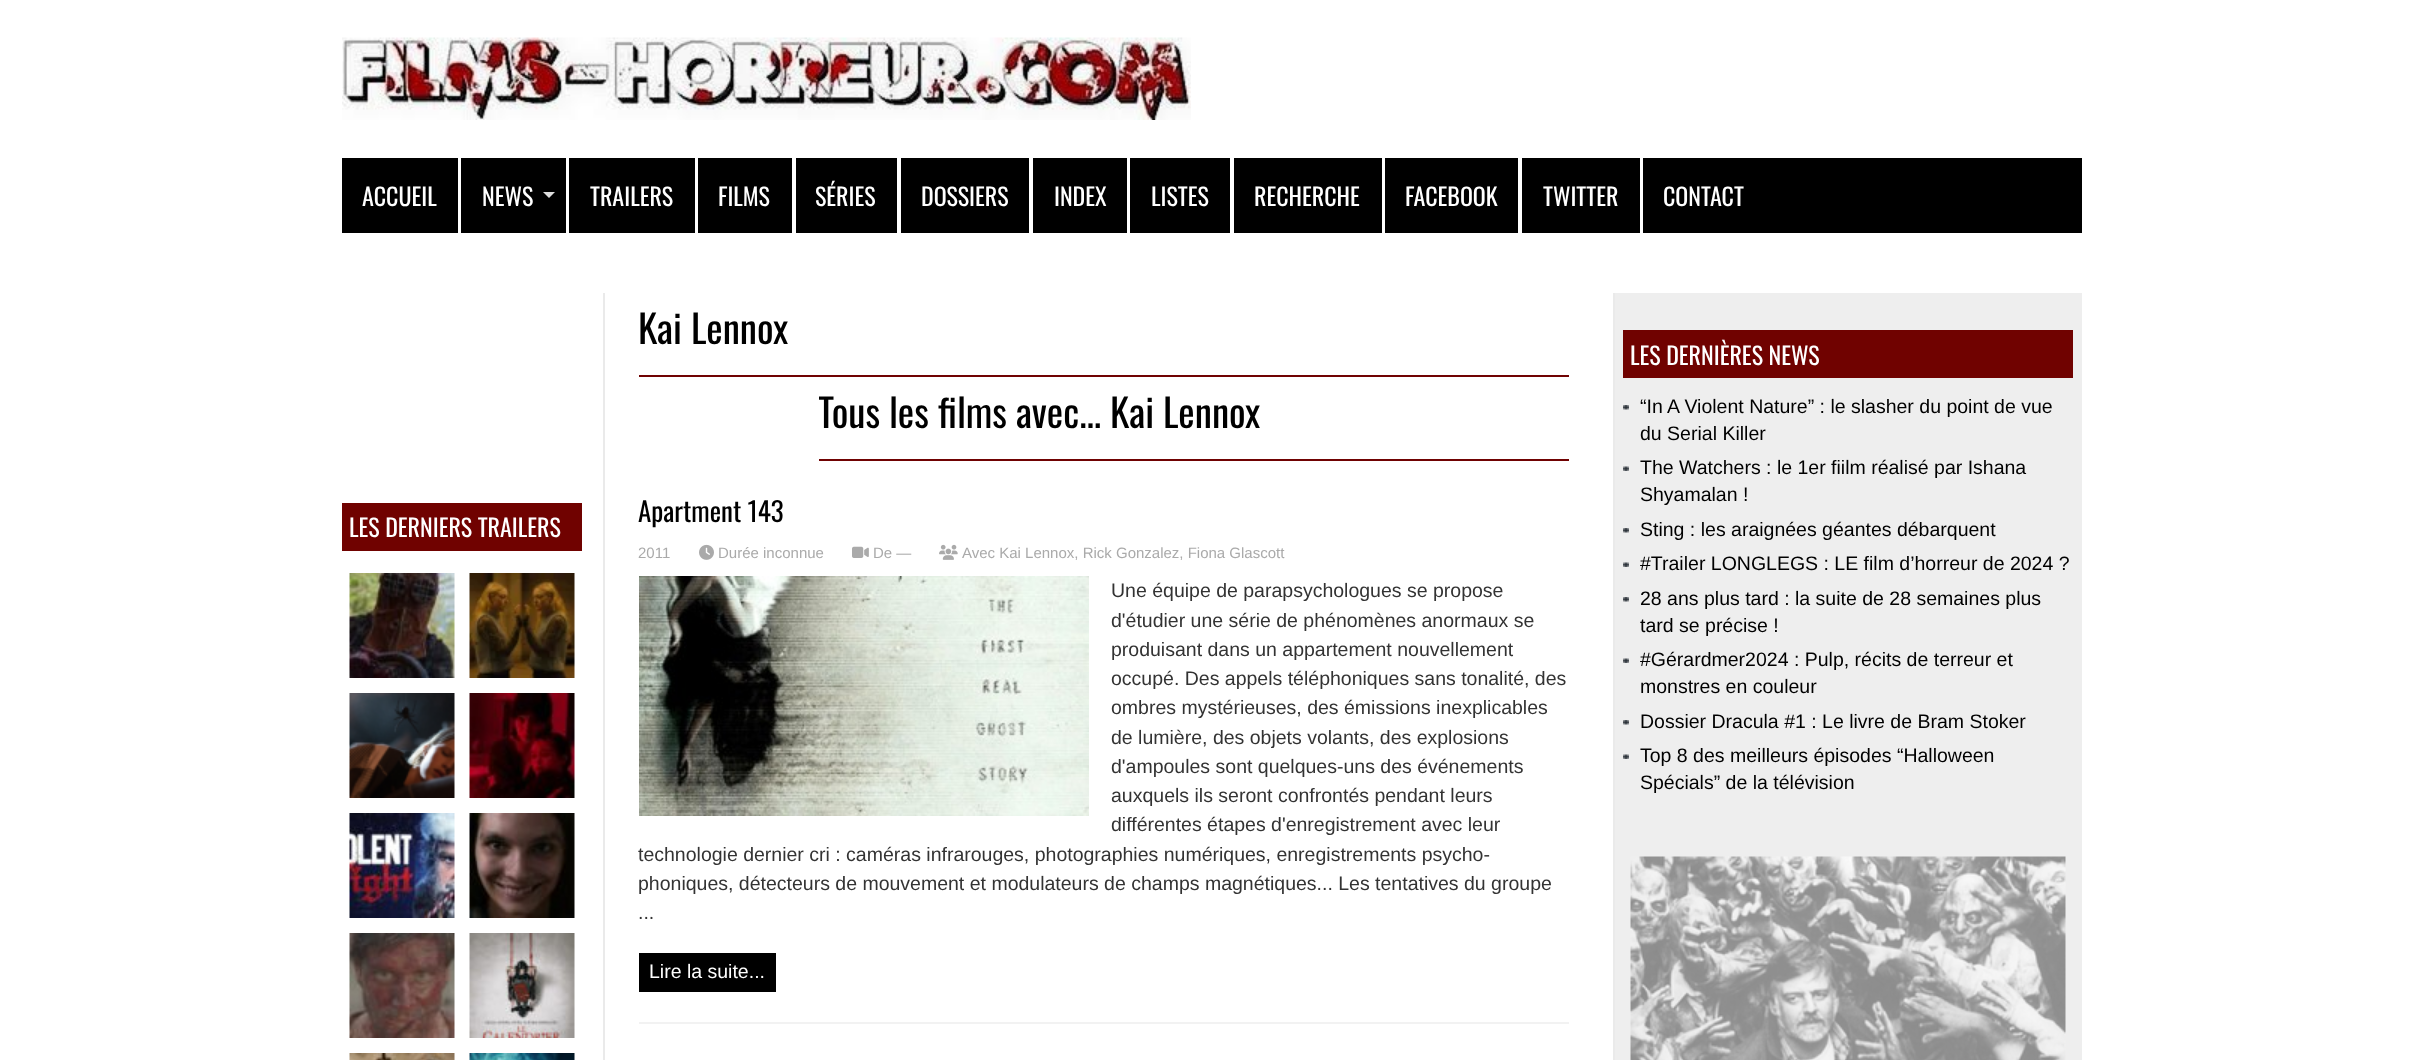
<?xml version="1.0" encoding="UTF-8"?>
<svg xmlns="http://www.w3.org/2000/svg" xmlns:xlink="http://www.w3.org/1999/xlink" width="2422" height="1060">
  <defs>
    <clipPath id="clip1"><rect x="819" y="377" width="750" height="82" /></clipPath>
  </defs>
  <rect width="100%" height="100%" fill="#ffffff" />
  <image x="342" y="37" width="849" height="83" xlink:href="image1.png" />
  <rect x="342" y="158" width="1740" height="75" fill="#000000" />
  <rect x="458" y="158" width="3" height="75" fill="#ffffff" />
  <path d="M 543 192 h 12 l -6 6 z" fill="#dddddd" />
  <rect x="566" y="158" width="3" height="75" fill="#ffffff" />
  <rect x="695" y="158" width="3" height="75" fill="#ffffff" />
  <rect x="792" y="158" width="4" height="75" fill="#ffffff" />
  <rect x="897" y="158" width="4" height="75" fill="#ffffff" />
  <rect x="1029" y="158" width="4" height="75" fill="#ffffff" />
  <rect x="1127" y="158" width="3" height="75" fill="#ffffff" />
  <rect x="1230" y="158" width="4" height="75" fill="#ffffff" />
  <rect x="1382" y="158" width="3" height="75" fill="#ffffff" />
  <rect x="1518" y="158" width="4" height="75" fill="#ffffff" />
  <rect x="1640" y="158" width="3" height="75" fill="#ffffff" />
  <rect x="603" y="293" width="2" height="767" fill="#eaeaea" />
  <rect x="342" y="503" width="240" height="48" fill="#700200" />
  <image x="349" y="573" width="106" height="105" xlink:href="image2.png" />
  <image x="469" y="573" width="106" height="105" xlink:href="image3.png" />
  <image x="349" y="693" width="106" height="105" xlink:href="image4.png" />
  <image x="469" y="693" width="106" height="105" xlink:href="image5.png" />
  <image x="349" y="813" width="106" height="105" xlink:href="image6.png" />
  <image x="469" y="813" width="106" height="105" xlink:href="image7.png" />
  <image x="349" y="933" width="106" height="105" xlink:href="image8.png" />
  <image x="469" y="933" width="106" height="105" xlink:href="image9.png" />
  <image x="349" y="1053" width="106" height="7" xlink:href="image10.png" />
  <image x="469" y="1053" width="106" height="7" xlink:href="image11.png" />
  <rect x="639" y="375" width="930" height="2" fill="#700202" />
  <rect x="819" y="459" width="750" height="2" fill="#700202" />
  <rect x="639" y="1022" width="930" height="2" fill="#f2f2f2" />
  <image x="699" y="544" width="15" height="16" xlink:href="image12.png" />
  <image x="852" y="546" width="17" height="12" xlink:href="image13.png" />
  <image x="939" y="544" width="19" height="16" xlink:href="image14.png" />
  <image x="639" y="576" width="450" height="240" xlink:href="image15.png" />
  <rect x="639" y="953" width="137" height="39" fill="#000000" />
  <rect x="1615" y="293" width="467" height="767" fill="#eeeeee" />
  <rect x="1613" y="293" width="2" height="767" fill="#eaeaea" />
  <rect x="1623" y="330" width="450" height="48" fill="#700200" />
  <image x="1623" y="405" width="6" height="5" xlink:href="image16.png" />
  <image x="1623" y="466" width="6" height="5" xlink:href="image17.png" />
  <image x="1623" y="528" width="6" height="5" xlink:href="image16.png" />
  <image x="1623" y="562" width="6" height="5" xlink:href="image17.png" />
  <image x="1623" y="597" width="6" height="5" xlink:href="image16.png" />
  <image x="1623" y="658" width="6" height="5" xlink:href="image17.png" />
  <image x="1623" y="720" width="6" height="5" xlink:href="image16.png" />
  <image x="1623" y="754" width="6" height="5" xlink:href="image17.png" />
  <image x="1630" y="856" width="436" height="204" xlink:href="image18.png" />
  <text x="362" y="206" style="font-family: Oswald; font-size: 24px; fill: #ffffff">ACCUEIL</text>
  <text x="482" y="206" style="font-family: Oswald; font-size: 24px; fill: #ffffff">NEWS</text>
  <text x="590" y="206" style="font-family: Oswald; font-size: 24px; fill: #ffffff">TRAILERS</text>
  <text x="718" y="206" style="font-family: Oswald; font-size: 24px; fill: #ffffff">FILMS</text>
  <text x="815" y="206" style="font-family: Oswald; font-size: 24px; fill: #ffffff">SÉRIES</text>
  <text x="921" y="206" style="font-family: Oswald; font-size: 24px; fill: #ffffff">DOSSIERS</text>
  <text x="1054" y="206" style="font-family: Oswald; font-size: 24px; fill: #ffffff">INDEX</text>
  <text x="1151" y="206" style="font-family: Oswald; font-size: 24px; fill: #ffffff">LISTES</text>
  <text x="1254" y="206" style="font-family: Oswald; font-size: 24px; fill: #ffffff">RECHERCHE</text>
  <text x="1405" y="206" style="font-family: Oswald; font-size: 24px; fill: #ffffff">FACEBOOK</text>
  <text x="1543" y="206" style="font-family: Oswald; font-size: 24px; fill: #ffffff">TWITTER</text>
  <text x="1663" y="206" style="font-family: Oswald; font-size: 24px; fill: #ffffff">CONTACT</text>
  <text x="349" y="537" style="font-family: Oswald; font-size: 24px; fill: #ffffff">LES DERNIERS TRAILERS</text>
  <text x="638" y="344" style="font-family: Oswald; font-size: 39px; fill: #000000">Kai Lennox</text>
  <g clip-path="url(#clip1)">
    <text x="818" y="428" style="font-family: Oswald; font-size: 39px; fill: #000000">Tous les films avec... Kai Lennox</text>
  </g>
  <text x="638" y="522" style="font-family: Oswald; font-size: 27px; fill: #000000">Apartment 143</text>
  <text x="638" y="558" style="font-family: Liberation Sans; font-size: 15px; fill: #aaaaaa">2011</text>
  <text x="718" y="558" style="font-family: Liberation Sans; font-size: 15px; fill: #aaaaaa">Durée inconnue</text>
  <text x="873" y="558" style="font-family: Liberation Sans; font-size: 15px; fill: #aaaaaa">De —</text>
  <text x="962" y="558" style="font-family: Liberation Sans; font-size: 15px; fill: #aaaaaa">Avec Kai Lennox, Rick Gonzalez, Fiona Glascott</text>
  <text x="1111" y="597" style="font-family: Liberation Sans; font-size: 19.5px; fill: #333333">Une équipe de parapsychologues se propose</text>
  <text x="1111" y="627" style="font-family: Liberation Sans; font-size: 19.5px; fill: #333333">d'étudier une série de phénomènes anormaux se</text>
  <text x="1111" y="656" style="font-family: Liberation Sans; font-size: 19.5px; fill: #333333">produisant dans un appartement nouvellement</text>
  <text x="1111" y="685" style="font-family: Liberation Sans; font-size: 19.5px; fill: #333333">occupé. Des appels téléphoniques sans tonalité, des</text>
  <text x="1111" y="714" style="font-family: Liberation Sans; font-size: 19.5px; fill: #333333">ombres mystérieuses, des émissions inexplicables</text>
  <text x="1111" y="744" style="font-family: Liberation Sans; font-size: 19.5px; fill: #333333">de lumière, des objets volants, des explosions</text>
  <text x="1111" y="773" style="font-family: Liberation Sans; font-size: 19.5px; fill: #333333">d'ampoules sont quelques-uns des événements</text>
  <text x="1111" y="802" style="font-family: Liberation Sans; font-size: 19.5px; fill: #333333">auxquels ils seront confrontés pendant leurs</text>
  <text x="1111" y="831" style="font-family: Liberation Sans; font-size: 19.5px; fill: #333333">différentes étapes d'enregistrement avec leur</text>
  <text x="638" y="861" style="font-family: Liberation Sans; font-size: 19.5px; fill: #333333">technologie dernier cri : caméras infrarouges, photographies numériques, enregistrements psycho-</text>
  <text x="638" y="890" style="font-family: Liberation Sans; font-size: 19.5px; fill: #333333">phoniques, détecteurs de mouvement et modulateurs de champs magnétiques... Les tentatives du groupe</text>
  <text x="638" y="919" style="font-family: Liberation Sans; font-size: 19.5px; fill: #333333">...</text>
  <text x="649" y="978" style="font-family: Liberation Sans; font-size: 19.5px; fill: #ffffff">Lire la suite...</text>
  <text x="1630" y="365" style="font-family: Oswald; font-size: 24px; fill: #ffffff">LES DERNIÈRES NEWS</text>
  <text x="1640" y="413" style="font-family: Liberation Sans; font-size: 19.5px; fill: #000000">“In A Violent Nature” : le slasher du point de vue</text>
  <text x="1640" y="440" style="font-family: Liberation Sans; font-size: 19.5px; fill: #000000">du Serial Killer</text>
  <text x="1640" y="474" style="font-family: Liberation Sans; font-size: 19.5px; fill: #000000">The Watchers : le 1er fiilm réalisé par Ishana</text>
  <text x="1640" y="501" style="font-family: Liberation Sans; font-size: 19.5px; fill: #000000">Shyamalan !</text>
  <text x="1640" y="536" style="font-family: Liberation Sans; font-size: 19.5px; fill: #000000">Sting : les araignées géantes débarquent</text>
  <text x="1640" y="570" style="font-family: Liberation Sans; font-size: 19.5px; fill: #000000">#Trailer LONGLEGS : LE film d’horreur de 2024 ?</text>
  <text x="1640" y="605" style="font-family: Liberation Sans; font-size: 19.5px; fill: #000000">28 ans plus tard : la suite de 28 semaines plus</text>
  <text x="1640" y="632" style="font-family: Liberation Sans; font-size: 19.5px; fill: #000000">tard se précise !</text>
  <text x="1640" y="666" style="font-family: Liberation Sans; font-size: 19.5px; fill: #000000">#Gérardmer2024 : Pulp, récits de terreur et</text>
  <text x="1640" y="693" style="font-family: Liberation Sans; font-size: 19.5px; fill: #000000">monstres en couleur</text>
  <text x="1640" y="728" style="font-family: Liberation Sans; font-size: 19.5px; fill: #000000">Dossier Dracula #1 : Le livre de Bram Stoker</text>
  <text x="1640" y="762" style="font-family: Liberation Sans; font-size: 19.5px; fill: #000000">Top 8 des meilleurs épisodes “Halloween</text>
  <text x="1640" y="789" style="font-family: Liberation Sans; font-size: 19.5px; fill: #000000">Spécials” de la télévision</text>
</svg>
